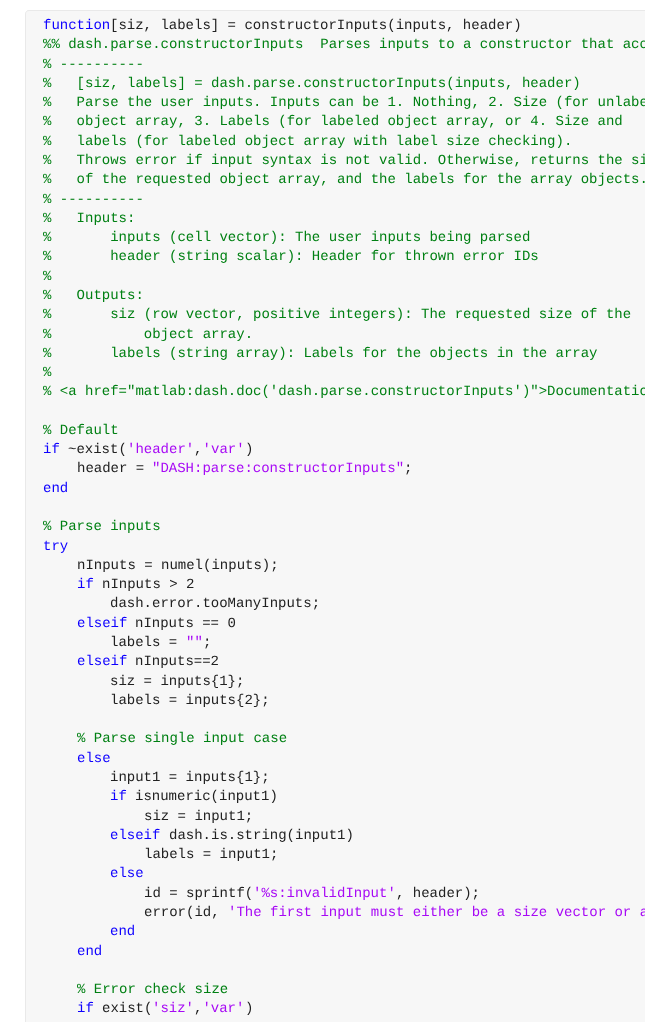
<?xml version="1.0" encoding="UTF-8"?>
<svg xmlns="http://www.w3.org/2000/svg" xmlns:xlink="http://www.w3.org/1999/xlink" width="645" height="1022">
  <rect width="100%" height="100%" fill="#ffffff" />
  <path d="M 29 10 h 616 v 1012 h -620 v -1008 c 0 -2 2 -4 4 -4 z" fill="#f7f7f7" />
  <path d="M 29 10 h 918 c 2 0 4 2 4 4 v 21 h -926 v -21 c 0 -2 2 -4 4 -4 z m 0 1 h 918 c 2 0 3 1 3 3 v 21 h -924 v -21 c 0 -2 1 -3 3 -3 z" fill="#e9e9e9" fill-rule="evenodd" />
  <rect x="25" y="35" width="1" height="987" fill="#e9e9e9" />
  <text x="43" y="29" style="font-family: Liberation Mono; font-size: 14px; fill: #0e00ff">function</text>
  <text x="110" y="29" style="font-family: Liberation Mono; font-size: 14px; fill: #212121">[siz, labels] = constructorInputs(inputs, header)</text>
  <text x="43" y="48" style="font-family: Liberation Mono; font-size: 14px; fill: #008013" xml:space="preserve">%% dash.parse.constructorInputs  Parses inputs to a constructor that acc</text>
  <text x="43" y="68" style="font-family: Liberation Mono; font-size: 14px; fill: #008013">% ----------</text>
  <text x="43" y="87" style="font-family: Liberation Mono; font-size: 14px; fill: #008013" xml:space="preserve">%   [siz, labels] = dash.parse.constructorInputs(inputs, header)</text>
  <text x="43" y="106" style="font-family: Liberation Mono; font-size: 14px; fill: #008013" xml:space="preserve">%   Parse the user inputs. Inputs can be 1. Nothing, 2. Size (for unlabe</text>
  <text x="43" y="125" style="font-family: Liberation Mono; font-size: 14px; fill: #008013" xml:space="preserve">%   object array, 3. Labels (for labeled object array, or 4. Size and</text>
  <text x="43" y="145" style="font-family: Liberation Mono; font-size: 14px; fill: #008013" xml:space="preserve">%   labels (for labeled object array with label size checking).</text>
  <text x="43" y="164" style="font-family: Liberation Mono; font-size: 14px; fill: #008013" xml:space="preserve">%   Throws error if input syntax is not valid. Otherwise, returns the si</text>
  <text x="43" y="183" style="font-family: Liberation Mono; font-size: 14px; fill: #008013" xml:space="preserve">%   of the requested object array, and the labels for the array objects.</text>
  <text x="43" y="203" style="font-family: Liberation Mono; font-size: 14px; fill: #008013">% ----------</text>
  <text x="43" y="222" style="font-family: Liberation Mono; font-size: 14px; fill: #008013" xml:space="preserve">%   Inputs:</text>
  <text x="43" y="241" style="font-family: Liberation Mono; font-size: 14px; fill: #008013" xml:space="preserve">%       inputs (cell vector): The user inputs being parsed</text>
  <text x="43" y="260" style="font-family: Liberation Mono; font-size: 14px; fill: #008013" xml:space="preserve">%       header (string scalar): Header for thrown error IDs</text>
  <text x="43" y="280" style="font-family: Liberation Mono; font-size: 14px; fill: #008013">%</text>
  <text x="43" y="299" style="font-family: Liberation Mono; font-size: 14px; fill: #008013" xml:space="preserve">%   Outputs:</text>
  <text x="43" y="318" style="font-family: Liberation Mono; font-size: 14px; fill: #008013" xml:space="preserve">%       siz (row vector, positive integers): The requested size of the</text>
  <text x="43" y="338" style="font-family: Liberation Mono; font-size: 14px; fill: #008013" xml:space="preserve">%           object array.</text>
  <text x="43" y="357" style="font-family: Liberation Mono; font-size: 14px; fill: #008013" xml:space="preserve">%       labels (string array): Labels for the objects in the array</text>
  <text x="43" y="376" style="font-family: Liberation Mono; font-size: 14px; fill: #008013">%</text>
  <text x="43" y="395" style="font-family: Liberation Mono; font-size: 14px; fill: #008013">% &lt;a href="matlab:dash.doc('dash.parse.constructorInputs')"&gt;Documentatio</text>
  <text x="43" y="434" style="font-family: Liberation Mono; font-size: 14px; fill: #008013">% Default</text>
  <text x="43" y="453" style="font-family: Liberation Mono; font-size: 14px; fill: #0e00ff">if</text>
  <text x="68" y="453" style="font-family: Liberation Mono; font-size: 14px; fill: #212121">~exist(</text>
  <text x="127" y="453" style="font-family: Liberation Mono; font-size: 14px; fill: #a709f5">'header' 'var'</text>
  <text x="245" y="453" style="font-family: Liberation Mono; font-size: 14px; fill: #212121">)</text>
  <text x="194" y="453" style="font-family: Liberation Mono; font-size: 14px; fill: #212121">,</text>
  <text x="77" y="472" style="font-family: Liberation Mono; font-size: 14px; fill: #212121">header =</text>
  <text x="152" y="472" style="font-family: Liberation Mono; font-size: 14px; fill: #a709f5">"DASH:parse:constructorInputs"</text>
  <text x="404" y="472" style="font-family: Liberation Mono; font-size: 14px; fill: #212121">;</text>
  <text x="43" y="492" style="font-family: Liberation Mono; font-size: 14px; fill: #0e00ff">end</text>
  <text x="43" y="530" style="font-family: Liberation Mono; font-size: 14px; fill: #008013">% Parse inputs</text>
  <text x="43" y="550" style="font-family: Liberation Mono; font-size: 14px; fill: #0e00ff">try</text>
  <text x="77" y="569" style="font-family: Liberation Mono; font-size: 14px; fill: #212121">nInputs = numel(inputs);</text>
  <text x="77" y="588" style="font-family: Liberation Mono; font-size: 14px; fill: #0e00ff">if</text>
  <text x="102" y="588" style="font-family: Liberation Mono; font-size: 14px; fill: #212121">nInputs &gt; 2</text>
  <text x="110" y="607" style="font-family: Liberation Mono; font-size: 14px; fill: #212121">dash.error.tooManyInputs;</text>
  <text x="77" y="627" style="font-family: Liberation Mono; font-size: 14px; fill: #0e00ff">elseif</text>
  <text x="135" y="627" style="font-family: Liberation Mono; font-size: 14px; fill: #212121">nInputs == 0</text>
  <text x="110" y="646" style="font-family: Liberation Mono; font-size: 14px; fill: #212121">labels =</text>
  <text x="186" y="646" style="font-family: Liberation Mono; font-size: 14px; fill: #a709f5">""</text>
  <text x="203" y="646" style="font-family: Liberation Mono; font-size: 14px; fill: #212121">;</text>
  <text x="77" y="665" style="font-family: Liberation Mono; font-size: 14px; fill: #0e00ff">elseif</text>
  <text x="135" y="665" style="font-family: Liberation Mono; font-size: 14px; fill: #212121">nInputs==2</text>
  <text x="110" y="685" style="font-family: Liberation Mono; font-size: 14px; fill: #212121">siz = inputs{1};</text>
  <text x="110" y="704" style="font-family: Liberation Mono; font-size: 14px; fill: #212121">labels = inputs{2};</text>
  <text x="77" y="742" style="font-family: Liberation Mono; font-size: 14px; fill: #008013">% Parse single input case</text>
  <text x="77" y="762" style="font-family: Liberation Mono; font-size: 14px; fill: #0e00ff">else</text>
  <text x="110" y="781" style="font-family: Liberation Mono; font-size: 14px; fill: #212121">input1 = inputs{1};</text>
  <text x="110" y="800" style="font-family: Liberation Mono; font-size: 14px; fill: #0e00ff">if</text>
  <text x="135" y="800" style="font-family: Liberation Mono; font-size: 14px; fill: #212121">isnumeric(input1)</text>
  <text x="144" y="820" style="font-family: Liberation Mono; font-size: 14px; fill: #212121">siz = input1;</text>
  <text x="110" y="839" style="font-family: Liberation Mono; font-size: 14px; fill: #0e00ff">elseif</text>
  <text x="169" y="839" style="font-family: Liberation Mono; font-size: 14px; fill: #212121">dash.is.string(input1)</text>
  <text x="144" y="858" style="font-family: Liberation Mono; font-size: 14px; fill: #212121">labels = input1;</text>
  <text x="110" y="877" style="font-family: Liberation Mono; font-size: 14px; fill: #0e00ff">else</text>
  <text x="144" y="897" style="font-family: Liberation Mono; font-size: 14px; fill: #212121">id = sprintf(</text>
  <text x="253" y="897" style="font-family: Liberation Mono; font-size: 14px; fill: #a709f5">'%s:invalidInput'</text>
  <text x="396" y="897" style="font-family: Liberation Mono; font-size: 14px; fill: #212121">, header);</text>
  <text x="144" y="916" style="font-family: Liberation Mono; font-size: 14px; fill: #212121">error(id,</text>
  <text x="228" y="916" style="font-family: Liberation Mono; font-size: 14px; fill: #a709f5">'The first input must either be a size vector or a</text>
  <text x="110" y="935" style="font-family: Liberation Mono; font-size: 14px; fill: #0e00ff">end</text>
  <text x="77" y="955" style="font-family: Liberation Mono; font-size: 14px; fill: #0e00ff">end</text>
  <text x="77" y="993" style="font-family: Liberation Mono; font-size: 14px; fill: #008013">% Error check size</text>
  <text x="77" y="1012" style="font-family: Liberation Mono; font-size: 14px; fill: #0e00ff">if</text>
  <text x="102" y="1012" style="font-family: Liberation Mono; font-size: 14px; fill: #212121">exist(</text>
  <text x="152" y="1012" style="font-family: Liberation Mono; font-size: 14px; fill: #a709f5">'siz' 'var'</text>
  <text x="245" y="1012" style="font-family: Liberation Mono; font-size: 14px; fill: #212121">)</text>
  <text x="194" y="1012" style="font-family: Liberation Mono; font-size: 14px; fill: #212121">,</text>
</svg>
